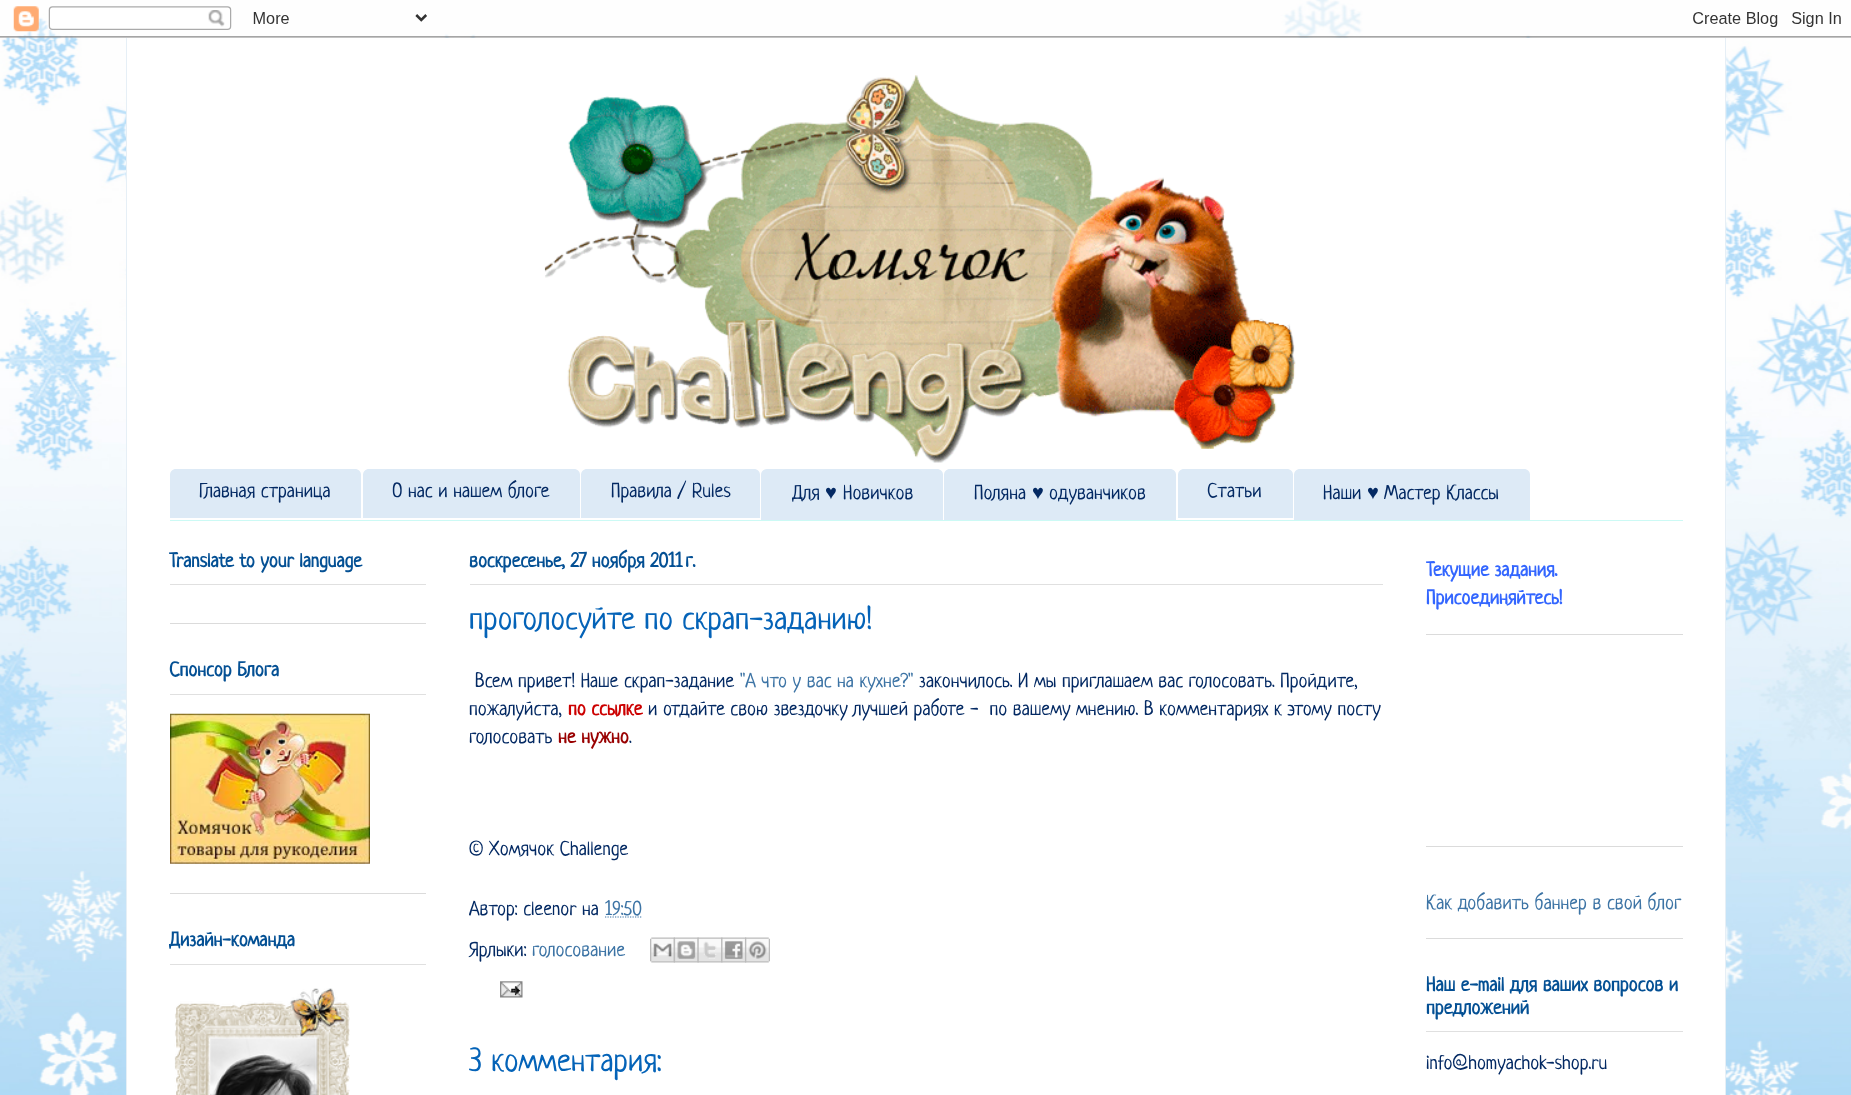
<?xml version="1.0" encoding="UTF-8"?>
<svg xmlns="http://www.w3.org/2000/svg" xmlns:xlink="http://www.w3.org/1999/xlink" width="1851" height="1095">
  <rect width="100%" height="100%" fill="#ffffff" />
  <image x="0" y="0" width="1851" height="1095" xlink:href="image1.png" />
  <rect x="127" y="38" width="1598" height="1057" fill="#ffffff" />
  <image x="445" y="37" width="1282" height="538" xlink:href="image3.png" />
  <image x="0" y="0" width="1851" height="38" xlink:href="image2.png" />
  <rect x="1725" y="38" width="1" height="1057" fill="#e6eff6" />
  <rect x="126" y="38" width="1" height="1057" fill="#e6eff6" />
  <image x="544" y="75" width="752" height="388" xlink:href="image4.png" />
  <rect x="170" y="520" width="1513" height="1" fill="#ccfaf5" />
  <path d="M 176 469 h 179 c 3.5 0 6 2.5 6 6 v 43 h -191 v -43 c 0 -3.5 2.5 -6 6 -6 z" fill="#ddeaf6" />
  <path d="M 369 469 h 205 c 3.5 0 6 2.5 6 6 v 43 h -217 v -43 c 0 -3.5 2.5 -6 6 -6 z" fill="#ddeaf6" />
  <path d="M 587 469 h 167 c 3.5 0 6 2.5 6 6 v 43 h -179 v -43 c 0 -3.5 2.5 -6 6 -6 z" fill="#ddeaf6" />
  <path d="M 767 469 h 170 c 3.5 0 6 2.5 6 6 v 45 h -182 v -45 c 0 -3.5 2.5 -6 6 -6 z" fill="#ddeaf6" />
  <path d="M 950 469 h 220 c 3.5 0 6 2.5 6 6 v 45 h -232 v -45 c 0 -3.5 2.5 -6 6 -6 z" fill="#ddeaf6" />
  <path d="M 1184 469 h 103 c 3.5 0 6 2.5 6 6 v 43 h -115 v -43 c 0 -3.5 2.5 -6 6 -6 z" fill="#ddeaf6" />
  <path d="M 1300 469 h 224 c 3.5 0 6 2.5 6 6 v 45 h -236 v -45 c 0 -3.5 2.5 -6 6 -6 z" fill="#ddeaf6" />
  <rect x="170" y="623" width="256" height="1" fill="#dbdbdb" />
  <rect x="170" y="584" width="256" height="1" fill="#e0e0e0" />
  <rect x="170" y="893" width="256" height="1" fill="#dbdbdb" />
  <rect x="170" y="694" width="256" height="1" fill="#e0e0e0" />
  <image x="170" y="713" width="200" height="151" xlink:href="image5.png" />
  <rect x="170" y="964" width="256" height="1" fill="#e0e0e0" />
  <image x="174" y="988" width="176" height="107" xlink:href="image6.png" />
  <rect x="470" y="584" width="913" height="1" fill="#e0e0e0" />
  <path d="M 605 917 h 37" fill="none" stroke="#3d74a5" stroke-width="1.2" stroke-dasharray="1.25 1.25" />
  <image x="650" y="937" width="25" height="26" xlink:href="image7.png" />
  <image x="673" y="937" width="26" height="26" xlink:href="image8.png" />
  <image x="697" y="937" width="26" height="26" xlink:href="image9.png" />
  <image x="721" y="937" width="26" height="26" xlink:href="image10.png" />
  <image x="745" y="937" width="25" height="26" xlink:href="image11.png" />
  <image x="500" y="981" width="23" height="17" xlink:href="image12.png" />
  <rect x="1426" y="634" width="257" height="1" fill="#dbdbdb" />
  <rect x="1426" y="846" width="257" height="1" fill="#dbdbdb" />
  <rect x="1426" y="938" width="257" height="1" fill="#dbdbdb" />
  <rect x="1426" y="1031" width="257" height="1" fill="#e0e0e0" />
  <text x="199" y="497" style="font-family: Neucha; font-size: 20px; fill: #032963">Главная страница</text>
  <text x="392" y="497" style="font-family: Neucha; font-size: 20px; fill: #032963">О нас и нашем блоге</text>
  <text x="611" y="497" style="font-family: Neucha; font-size: 20px; fill: #032963">Правила / Rules</text>
  <text x="792" y="499" style="font-family: Neucha; font-size: 20px; fill: #032963">Для</text>
  <text x="825" y="499" style="font-family: Liberation Serif; font-size: 20px; fill: #032963">♥</text>
  <text x="843" y="499" style="font-family: Neucha; font-size: 20px; fill: #032963">Новичков</text>
  <text x="974" y="499" style="font-family: Neucha; font-size: 20px; fill: #032963">Поляна</text>
  <text x="1032" y="499" style="font-family: Liberation Serif; font-size: 20px; fill: #032963">♥</text>
  <text x="1049" y="499" style="font-family: Neucha; font-size: 20px; fill: #032963">одуванчиков</text>
  <text x="1207" y="497" style="font-family: Neucha; font-size: 20px; fill: #032963">Статьи</text>
  <text x="1323" y="499" style="font-family: Neucha; font-size: 20px; fill: #032963">Наши</text>
  <text x="1367" y="499" style="font-family: Liberation Serif; font-size: 20px; fill: #032963">♥</text>
  <text x="1384" y="499" style="font-family: Neucha; font-size: 20px; fill: #032963">Мастер Классы</text>
  <text x="169" y="567" style="font-family: Neucha; font-size: 20px; font-weight: bold; fill: #045094">Translate to your language</text>
  <text x="169" y="676" style="font-family: Neucha; font-size: 20px; font-weight: bold; fill: #045094">Спонсор Блога</text>
  <text x="169" y="946" style="font-family: Neucha; font-size: 20px; font-weight: bold; fill: #045094">Дизайн-команда</text>
  <text x="469" y="567" style="font-family: Neucha; font-size: 20px; font-weight: bold; fill: #045094">воскресенье, 27 ноября 2011 г.</text>
  <text x="469" y="629" style="font-family: Neucha; font-size: 32.5px; fill: #0463b8">проголосуйте по скрап-заданию!</text>
  <text x="475" y="687" style="font-family: Neucha; font-size: 20px; fill: #032963">Всем привет! Наше скрап-задание</text>
  <text x="740" y="687" style="font-family: Neucha; font-size: 20px; fill: #3d74a5">"А что у вас на кухне?"</text>
  <text x="919" y="687" style="font-family: Neucha; font-size: 20px; fill: #032963">закончилось. И мы приглашаем вас голосовать. Пройдите,</text>
  <text x="469" y="715" style="font-family: Neucha; font-size: 20px; fill: #032963">пожалуйста,</text>
  <text x="568" y="715" style="font-family: Neucha; font-size: 20px; font-weight: bold; fill: #cc0000">по ссылке</text>
  <text x="648" y="715" style="font-family: Neucha; font-size: 20px; fill: #032963" xml:space="preserve">и отдайте свою звездочку лучшей работе -  по вашему мнению. В комментариях к этому посту</text>
  <text x="469" y="743" style="font-family: Neucha; font-size: 20px; fill: #032963">голосовать</text>
  <text x="558" y="743" style="font-family: Neucha; font-size: 20px; font-weight: bold; fill: #990000">не нужно</text>
  <text x="629" y="743" style="font-family: Neucha; font-size: 20px; fill: #032963">.</text>
  <text x="469" y="855" style="font-family: Neucha; font-size: 20px; fill: #032963">© Хомячок Challenge</text>
  <text x="469" y="915" style="font-family: Neucha; font-size: 20px; fill: #032963">Автор: cleenor на</text>
  <text x="605" y="915" style="font-family: Neucha; font-size: 20px; fill: #3d74a5">19:50</text>
  <text x="469" y="956" style="font-family: Neucha; font-size: 20px; fill: #032963">Ярлыки:</text>
  <text x="532" y="956" style="font-family: Neucha; font-size: 20px; fill: #3d74a5">голосование</text>
  <text x="469" y="1071" style="font-family: Neucha; font-size: 32.5px; fill: #0463b8">3 комментария:</text>
  <text x="1426" y="576" style="font-family: Neucha; font-size: 20px; font-weight: bold; fill: #3366ff">Текущие задания.</text>
  <text x="1426" y="604" style="font-family: Neucha; font-size: 20px; font-weight: bold; fill: #3366ff">Присоединяйтесь!</text>
  <text x="1426" y="909" style="font-family: Neucha; font-size: 20px; fill: #3d74a5">Как добавить баннер в свой блог</text>
  <text x="1426" y="991" style="font-family: Neucha; font-size: 20px; font-weight: bold; fill: #045094">Наш e-mail для ваших вопросов и</text>
  <text x="1426" y="1014" style="font-family: Neucha; font-size: 20px; font-weight: bold; fill: #045094">предложений</text>
  <text x="1426" y="1069" style="font-family: Neucha; font-size: 20px; fill: #032963">info@homyachok-shop.ru</text>
</svg>
